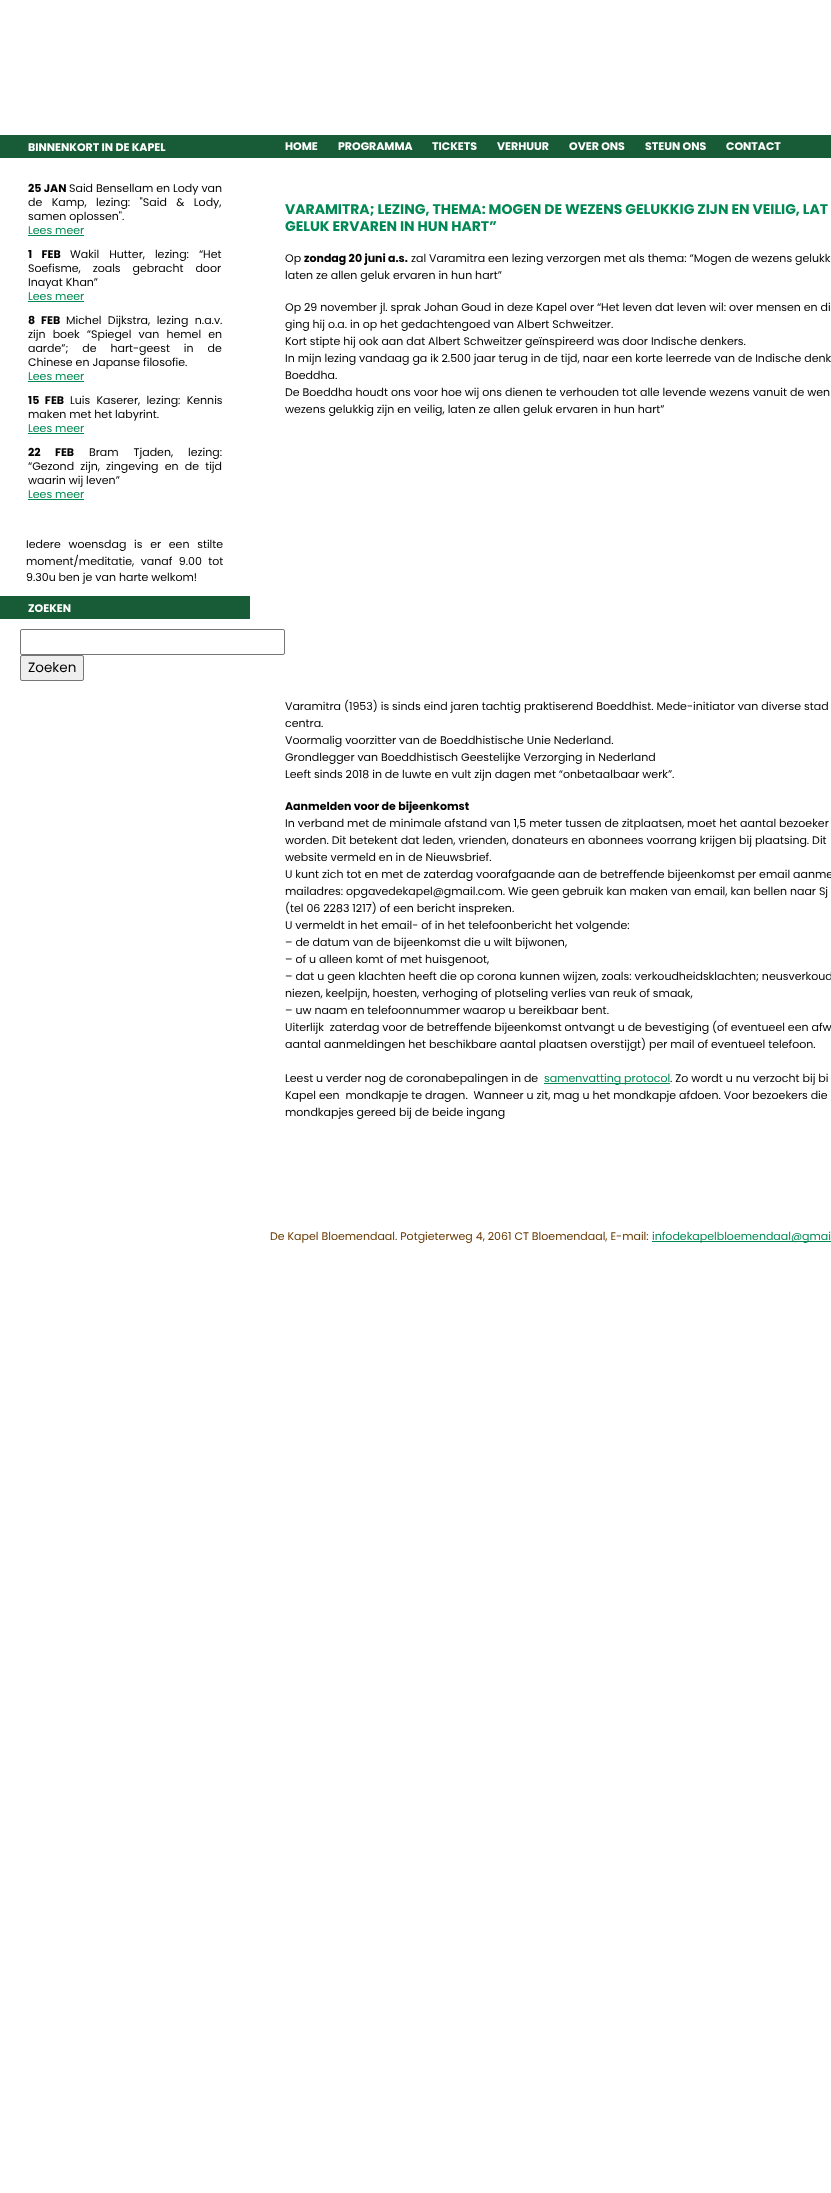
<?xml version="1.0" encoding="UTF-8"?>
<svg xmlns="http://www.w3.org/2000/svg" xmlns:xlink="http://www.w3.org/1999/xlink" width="831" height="2193">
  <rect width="100%" height="100%" fill="#ffffff" />
  <rect y="135" width="831" height="23" fill="#175c37" />
  <rect x="28" y="235" width="56" height="1" fill="#008954" />
  <rect x="28" y="301" width="56" height="1" fill="#008954" />
  <rect x="28" y="381" width="56" height="1" fill="#008954" />
  <rect x="28" y="433" width="56" height="1" fill="#008954" />
  <rect x="28" y="499" width="56" height="1" fill="#008954" />
  <rect y="596" width="250" height="23" fill="#175c37" />
  <rect x="20.5" y="629.5" width="264" height="25" rx="1.5" fill="none" stroke="#767676" />
  <rect x="20.5" y="655.5" width="63" height="25" rx="1.5" fill="#efefef" stroke="#767676" />
  <rect x="544" y="1083" width="126" height="1" fill="#008954" />
  <rect x="652" y="1241" width="179" height="1" fill="#008954" />
  <text x="28" y="151" style="font-family: Poppins; font-size: 11px; font-weight: bold; fill: #ffffff">BINNENKORT IN DE KAPEL</text>
  <text x="28" y="192" style="font-family: Poppins; font-size: 11px; font-weight: bold; fill: #000000">25 JAN</text>
  <text x="69" y="192" style="font-family: Poppins; font-size: 11px; fill: #000000">Said Bensellam en Lody van</text>
  <text x="28" y="206" word-spacing="6.5" style="font-family: Poppins; font-size: 11px; fill: #000000">de Kamp, lezing: "Said &amp; Lody,</text>
  <text x="28" y="220" style="font-family: Poppins; font-size: 11px; fill: #000000">samen oplossen".</text>
  <text x="28" y="234" style="font-family: Poppins; font-size: 11px; fill: #008954">Lees meer</text>
  <text x="28" y="258" word-spacing="7" style="font-family: Poppins; font-size: 11px; font-weight: bold; fill: #000000">1 FEB</text>
  <text x="70" y="258" word-spacing="7" style="font-family: Poppins; font-size: 11px; fill: #000000">Wakil Hutter, lezing: “Het</text>
  <text x="28" y="272" word-spacing="9" style="font-family: Poppins; font-size: 11px; fill: #000000">Soefisme, zoals gebracht door</text>
  <text x="28" y="286" style="font-family: Poppins; font-size: 11px; fill: #000000">Inayat Khan”</text>
  <text x="28" y="300" style="font-family: Poppins; font-size: 11px; fill: #008954">Lees meer</text>
  <text x="28" y="324" word-spacing="3.5" style="font-family: Poppins; font-size: 11px; font-weight: bold; fill: #000000">8 FEB</text>
  <text x="66" y="324" word-spacing="3.5" style="font-family: Poppins; font-size: 11px; fill: #000000">Michel Dijkstra, lezing n.a.v.</text>
  <text x="28" y="338" word-spacing="4.25" style="font-family: Poppins; font-size: 11px; fill: #000000">zijn boek “Spiegel van hemel en</text>
  <text x="28" y="352" word-spacing="11" style="font-family: Poppins; font-size: 11px; fill: #000000">aarde”; de hart-geest in de</text>
  <text x="28" y="366" style="font-family: Poppins; font-size: 11px; fill: #000000">Chinese en Japanse filosofie.</text>
  <text x="28" y="380" style="font-family: Poppins; font-size: 11px; fill: #008954">Lees meer</text>
  <text x="28" y="404" word-spacing="3.25" style="font-family: Poppins; font-size: 11px; font-weight: bold; fill: #000000">15 FEB</text>
  <text x="70" y="404" word-spacing="3.25" style="font-family: Poppins; font-size: 11px; fill: #000000">Luis Kaserer, lezing: Kennis</text>
  <text x="28" y="418" style="font-family: Poppins; font-size: 11px; fill: #000000">maken met het labyrint.</text>
  <text x="28" y="432" style="font-family: Poppins; font-size: 11px; fill: #008954">Lees meer</text>
  <text x="28" y="456" word-spacing="12" style="font-family: Poppins; font-size: 11px; font-weight: bold; fill: #000000">22 FEB</text>
  <text x="89" y="456" word-spacing="12" style="font-family: Poppins; font-size: 11px; fill: #000000">Bram Tjaden, lezing:</text>
  <text x="28" y="470" word-spacing="3.25" style="font-family: Poppins; font-size: 11px; fill: #000000">“Gezond zijn, zingeving en de tijd</text>
  <text x="28" y="484" style="font-family: Poppins; font-size: 11px; fill: #000000">waarin wij leven”</text>
  <text x="28" y="498" style="font-family: Poppins; font-size: 11px; fill: #008954">Lees meer</text>
  <text x="26" y="548" word-spacing="4.75" style="font-family: Poppins; font-size: 11px; fill: #000000">Iedere woensdag is er een stilte</text>
  <text x="26" y="565" word-spacing="3.5" style="font-family: Poppins; font-size: 11px; fill: #000000">moment/meditatie, vanaf 9.00 tot</text>
  <text x="26" y="581" style="font-family: Poppins; font-size: 11px; fill: #000000">9.30u ben je van harte welkom!</text>
  <text x="28" y="612" style="font-family: Poppins; font-size: 11px; font-weight: bold; fill: #ffffff">ZOEKEN</text>
  <text x="28" y="672" style="font-family: Poppins; font-size: 13.5px; fill: #000000">Zoeken</text>
  <text x="285" y="150" style="font-family: Poppins; font-size: 11px; font-weight: bold; fill: #ffffff">HOME</text>
  <text x="338" y="150" style="font-family: Poppins; font-size: 11px; font-weight: bold; fill: #ffffff">PROGRAMMA</text>
  <text x="432" y="150" style="font-family: Poppins; font-size: 11px; font-weight: bold; fill: #ffffff">TICKETS</text>
  <text x="497" y="150" style="font-family: Poppins; font-size: 11px; font-weight: bold; fill: #ffffff">VERHUUR</text>
  <text x="569" y="150" style="font-family: Poppins; font-size: 11px; font-weight: bold; fill: #ffffff">OVER ONS</text>
  <text x="645" y="150" style="font-family: Poppins; font-size: 11px; font-weight: bold; fill: #ffffff">STEUN ONS</text>
  <text x="726" y="150" style="font-family: Poppins; font-size: 11px; font-weight: bold; fill: #ffffff">CONTACT</text>
  <text x="285" y="214" style="font-family: Poppins; font-size: 14px; font-weight: bold; fill: #008954">VARAMITRA; LEZING, THEMA: MOGEN DE WEZENS GELUKKIG ZIJN EN VEILIG, LAT</text>
  <text x="285" y="231" style="font-family: Poppins; font-size: 14px; font-weight: bold; fill: #008954">GELUK ERVAREN IN HUN HART”</text>
  <text x="285" y="262" style="font-family: Poppins; font-size: 11px; fill: #000000">Op</text>
  <text x="304" y="262" style="font-family: Poppins; font-size: 11px; font-weight: bold; fill: #000000">zondag 20 juni a.s.</text>
  <text x="411" y="262" style="font-family: Poppins; font-size: 11px; fill: #000000">zal Varamitra een lezing verzorgen met als thema: “Mogen de wezens gelukk</text>
  <text x="285" y="279" style="font-family: Poppins; font-size: 11px; fill: #000000">laten ze allen geluk ervaren in hun hart”</text>
  <text x="285" y="311" style="font-family: Poppins; font-size: 11px; fill: #000000">Op 29 november jl. sprak Johan Goud in deze Kapel over “Het leven dat leven wil: over mensen en di</text>
  <text x="285" y="328" style="font-family: Poppins; font-size: 11px; fill: #000000">ging hij o.a. in op het gedachtengoed van Albert Schweitzer.</text>
  <text x="285" y="345" style="font-family: Poppins; font-size: 11px; fill: #000000">Kort stipte hij ook aan dat Albert Schweitzer geïnspireerd was door Indische denkers.</text>
  <text x="285" y="362" style="font-family: Poppins; font-size: 11px; fill: #000000">In mijn lezing vandaag ga ik 2.500 jaar terug in de tijd, naar een korte leerrede van de Indische denk</text>
  <text x="285" y="379" style="font-family: Poppins; font-size: 11px; fill: #000000">Boeddha.</text>
  <text x="285" y="396" style="font-family: Poppins; font-size: 11px; fill: #000000">De Boeddha houdt ons voor hoe wij ons dienen te verhouden tot alle levende wezens vanuit de wen</text>
  <text x="285" y="413" style="font-family: Poppins; font-size: 11px; fill: #000000">wezens gelukkig zijn en veilig, laten ze allen geluk ervaren in hun hart”</text>
  <text x="285" y="710" style="font-family: Poppins; font-size: 11px; fill: #000000">Varamitra (1953) is sinds eind jaren tachtig praktiserend Boeddhist. Mede-initiator van diverse stad</text>
  <text x="285" y="727" style="font-family: Poppins; font-size: 11px; fill: #000000">centra.</text>
  <text x="285" y="744" style="font-family: Poppins; font-size: 11px; fill: #000000">Voormalig voorzitter van de Boeddhistische Unie Nederland.</text>
  <text x="285" y="761" style="font-family: Poppins; font-size: 11px; fill: #000000">Grondlegger van Boeddhistisch Geestelijke Verzorging in Nederland</text>
  <text x="285" y="778" style="font-family: Poppins; font-size: 11px; fill: #000000">Leeft sinds 2018 in de luwte en vult zijn dagen met “onbetaalbaar werk”.</text>
  <text x="285" y="810" style="font-family: Poppins; font-size: 11px; font-weight: bold; fill: #000000">Aanmelden voor de bijeenkomst</text>
  <text x="285" y="827" style="font-family: Poppins; font-size: 11px; fill: #000000">In verband met de minimale afstand van 1,5 meter tussen de zitplaatsen, moet het aantal bezoeker</text>
  <text x="285" y="844" style="font-family: Poppins; font-size: 11px; fill: #000000">worden. Dit betekent dat leden, vrienden, donateurs en abonnees voorrang krijgen bij plaatsing. Dit</text>
  <text x="285" y="861" style="font-family: Poppins; font-size: 11px; fill: #000000">website vermeld en in de Nieuwsbrief.</text>
  <text x="285" y="878" style="font-family: Poppins; font-size: 11px; fill: #000000">U kunt zich tot en met de zaterdag voorafgaande aan de betreffende bijeenkomst per email aanme</text>
  <text x="285" y="895" style="font-family: Poppins; font-size: 11px; fill: #000000">mailadres: opgavedekapel@gmail.com. Wie geen gebruik kan maken van email, kan bellen naar Sj</text>
  <text x="285" y="912" style="font-family: Poppins; font-size: 11px; fill: #000000">(tel 06 2283 1217) of een bericht inspreken.</text>
  <text x="285" y="929" style="font-family: Poppins; font-size: 11px; fill: #000000">U vermeldt in het email- of in het telefoonbericht het volgende:</text>
  <text x="285" y="946" style="font-family: Poppins; font-size: 11px; fill: #000000">– de datum van de bijeenkomst die u wilt bijwonen,</text>
  <text x="285" y="963" style="font-family: Poppins; font-size: 11px; fill: #000000">– of u alleen komt of met huisgenoot,</text>
  <text x="285" y="980" style="font-family: Poppins; font-size: 11px; fill: #000000">– dat u geen klachten heeft die op corona kunnen wijzen, zoals: verkoudheidsklachten; neusverkoud</text>
  <text x="285" y="997" style="font-family: Poppins; font-size: 11px; fill: #000000">niezen, keelpijn, hoesten, verhoging of plotseling verlies van reuk of smaak,</text>
  <text x="285" y="1014" style="font-family: Poppins; font-size: 11px; fill: #000000">– uw naam en telefoonnummer waarop u bereikbaar bent.</text>
  <text x="285" y="1031" style="font-family: Poppins; font-size: 11px; fill: #000000" xml:space="preserve">Uiterlijk  zaterdag voor de betreffende bijeenkomst ontvangt u de bevestiging (of eventueel een afw</text>
  <text x="285" y="1048" style="font-family: Poppins; font-size: 11px; fill: #000000">aantal aanmeldingen het beschikbare aantal plaatsen overstijgt) per mail of eventueel telefoon.</text>
  <text x="285" y="1082" style="font-family: Poppins; font-size: 11px; fill: #000000">Leest u verder nog de coronabepalingen in de</text>
  <text x="544" y="1082" style="font-family: Poppins; font-size: 11px; fill: #008954">samenvatting protocol</text>
  <text x="670" y="1082" style="font-family: Poppins; font-size: 11px; fill: #000000">. Zo wordt u nu verzocht bij bi</text>
  <text x="285" y="1099" style="font-family: Poppins; font-size: 11px; fill: #000000" xml:space="preserve">Kapel een  mondkapje te dragen.  Wanneer u zit, mag u het mondkapje afdoen. Voor bezoekers die</text>
  <text x="285" y="1116" style="font-family: Poppins; font-size: 11px; fill: #000000">mondkapjes gereed bij de beide ingang</text>
  <text x="270" y="1240" style="font-family: Poppins; font-size: 11px; fill: #663700">De Kapel Bloemendaal. Potgieterweg 4, 2061 CT Bloemendaal, E-mail:</text>
  <text x="652" y="1240" style="font-family: Poppins; font-size: 11px; fill: #008954">infodekapelbloemendaal@gmai</text>
</svg>
